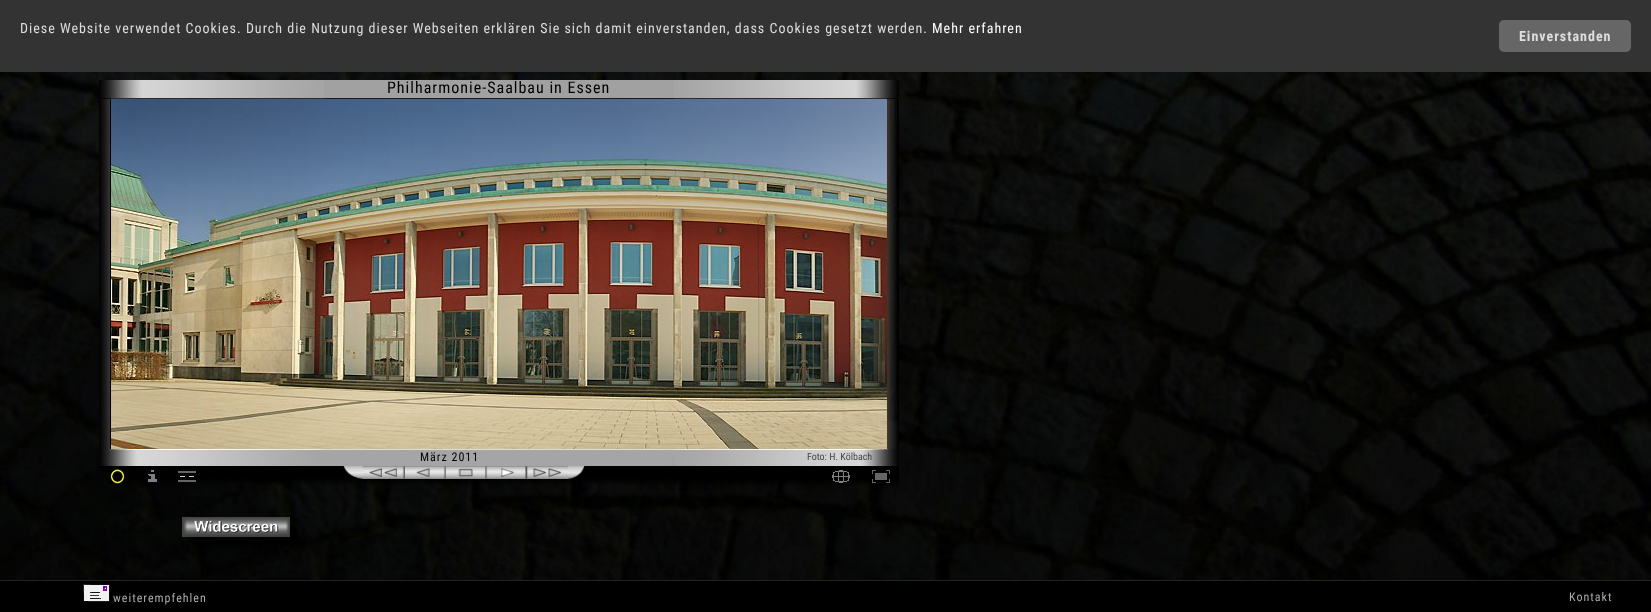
<?xml version="1.0" encoding="UTF-8"?>
<svg xmlns="http://www.w3.org/2000/svg" xmlns:xlink="http://www.w3.org/1999/xlink" width="1651" height="612">
  <defs>
    <clipPath id="clip1"><rect x="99" y="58" width="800" height="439" /></clipPath>
  </defs>
  <rect width="100%" height="100%" fill="#ffffff" />
  <image x="0" y="72" width="1651" height="508" xlink:href="image1.png" />
  <rect width="1651" height="72" fill="#333333" />
  <rect x="1499" y="20" width="132" height="32" rx="5" fill="#666666" />
  <g clip-path="url(#clip1)">
    <rect x="107" y="95" width="800" height="387" fill="#000000" filter="blur(3px)" />
    <rect x="109" y="90" width="800" height="19" fill="#000000" filter="blur(3px)" />
  </g>
  <image x="110" y="80" width="789" height="20" xlink:href="image3.png" />
  <image x="99" y="80" width="225" height="19" xlink:href="image2.png" />
  <image x="674" y="80" width="225" height="19" xlink:href="image4.png" />
  <image x="99" y="99" width="11" height="350" xlink:href="image5.png" />
  <image x="111" y="99" width="776" height="350" xlink:href="image6.png" />
  <image x="887" y="99" width="11" height="350" xlink:href="image7.png" />
  <image x="99" y="449" width="800" height="19" xlink:href="image9.png" />
  <image x="99" y="449" width="225" height="17" xlink:href="image8.png" />
  <g clip-path="url(#clip1)">
    <rect x="679" y="459" width="225" height="18" fill="#000000" filter="blur(3px)" />
  </g>
  <image x="674" y="449" width="225" height="17" xlink:href="image10.png" />
  <image x="108" y="469" width="17" height="15" xlink:href="image11.png" />
  <image x="143" y="469" width="17" height="15" xlink:href="image12.png" />
  <image x="178" y="469" width="18" height="15" xlink:href="image13.png" />
  <image x="343" y="466" width="20" height="13" xlink:href="image14.png" />
  <image x="363" y="466" width="205" height="13" xlink:href="image15.png" />
  <image x="568" y="466" width="17" height="13" xlink:href="image16.png" />
  <image x="832" y="469" width="18" height="15" xlink:href="image17.png" />
  <image x="872" y="470" width="18" height="14" xlink:href="image18.png" />
  <rect x="190" y="527" width="108" height="20" fill="#000000" filter="blur(3px)" />
  <image x="182" y="517" width="108" height="20" xlink:href="image19.png" />
  <rect y="581" width="1651" height="31" fill="#000000" />
  <rect y="580" width="1651" height="1" fill="#222222" />
  <image x="83" y="584" width="27" height="18" xlink:href="image20.png" />
  <text x="20" y="33" style="font-family: Roboto Condensed; font-size: 14px; letter-spacing: 1px; fill: #dddddd">Diese Website verwendet Cookies. Durch die Nutzung dieser Webseiten erklären Sie sich damit einverstanden, dass Cookies gesetzt werden.</text>
  <text x="932" y="33" style="font-family: Roboto Condensed; font-size: 14px; letter-spacing: 1px; fill: #ffffff">Mehr erfahren</text>
  <text x="1519" y="41" style="font-family: Roboto Condensed; font-size: 14px; font-weight: bold; letter-spacing: 1px; fill: #dddddd">Einverstanden</text>
  <text x="387" y="93" style="font-family: Roboto Condensed; font-size: 16px; letter-spacing: 1px; fill: #000000">Philharmonie-Saalbau in Essen</text>
  <text x="420" y="461" style="font-family: Roboto Condensed; font-size: 12px; letter-spacing: 1px; fill: #000000">März 2011</text>
  <text x="807" y="460" style="font-family: Roboto Condensed; font-size: 10px; fill: #464646">Foto: H. Kölbach</text>
  <text x="113" y="602" style="font-family: Roboto Condensed; font-size: 12px; letter-spacing: 1px; fill: #aaaaaa">weiterempfehlen</text>
  <text x="1569" y="601" style="font-family: Roboto Condensed; font-size: 12px; letter-spacing: 1px; fill: #aaaaaa">Kontakt</text>
</svg>
